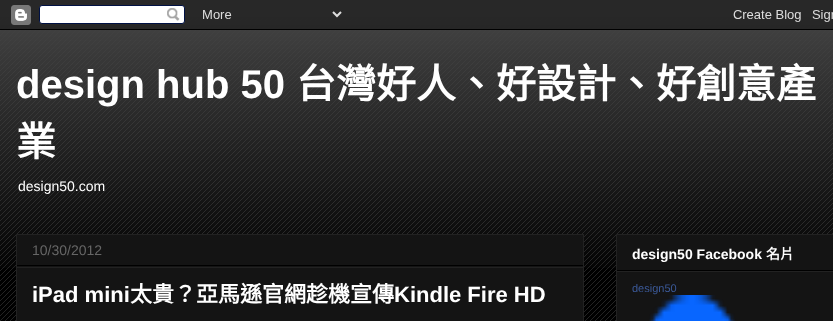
<?xml version="1.0" encoding="UTF-8"?>
<svg xmlns="http://www.w3.org/2000/svg" xmlns:xlink="http://www.w3.org/1999/xlink" width="833" height="321">
  <rect width="100%" height="100%" fill="#000000" />
  <image x="0" y="13" width="833" height="308" xlink:href="image1.png" />
  <image x="0" y="0" width="833" height="268" xlink:href="image2.png" />
  <image x="0" y="0" width="833" height="30" xlink:href="image3.png" />
  <rect x="16.5" y="234.5" width="567" height="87" fill="#141414" stroke="#222222" />
  <rect x="17" y="265" width="566" height="1" fill="#000000" />
  <rect x="17" y="267" width="566" height="1" fill="#222222" />
  <rect x="616.5" y="234.5" width="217" height="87" fill="#141414" stroke="#222222" />
  <rect x="617" y="270" width="216" height="1" fill="#000000" />
  <rect x="617" y="271" width="216" height="1" fill="#222222" />
  <image x="649" y="295" width="87" height="26" xlink:href="image4.png" />
  <text x="16" y="98" style="font-family: Liberation Sans; font-size: 40px; font-weight: bold; fill: #ffffff">design hub 50</text>
  <text x="296" y="98" style="font-family: Noto Sans CJK TC; font-size: 40px; font-weight: bold; fill: #ffffff">台灣好人、好設計、好創意產</text>
  <text x="16" y="156" style="font-family: Noto Sans CJK TC; font-size: 40px; font-weight: bold; fill: #ffffff">業</text>
  <text x="18" y="191" style="font-family: Liberation Sans; font-size: 14px; fill: #ffffff">design50.com</text>
  <text x="32" y="255" style="font-family: Liberation Sans; font-size: 14px; fill: #666666">10/30/2012</text>
  <text x="32" y="302" style="font-family: Liberation Sans; font-size: 22px; font-weight: bold; fill: #ffffff">iPad mini</text>
  <text x="130" y="302" style="font-family: Noto Sans CJK TC; font-size: 22px; font-weight: bold; fill: #ffffff">太貴？亞馬遜官網趁機宣傳</text>
  <text x="394" y="302" style="font-family: Liberation Sans; font-size: 22px; font-weight: bold; fill: #ffffff">Kindle Fire HD</text>
  <text x="632" y="259" style="font-family: Liberation Sans; font-size: 14px; font-weight: bold; fill: #ffffff">design50 Facebook</text>
  <text x="766" y="259" style="font-family: Noto Sans CJK TC; font-size: 14px; font-weight: bold; fill: #ffffff">名片</text>
  <text x="632" y="292" style="font-family: Liberation Sans; font-size: 11px; fill: #3b5998">design50</text>
</svg>
